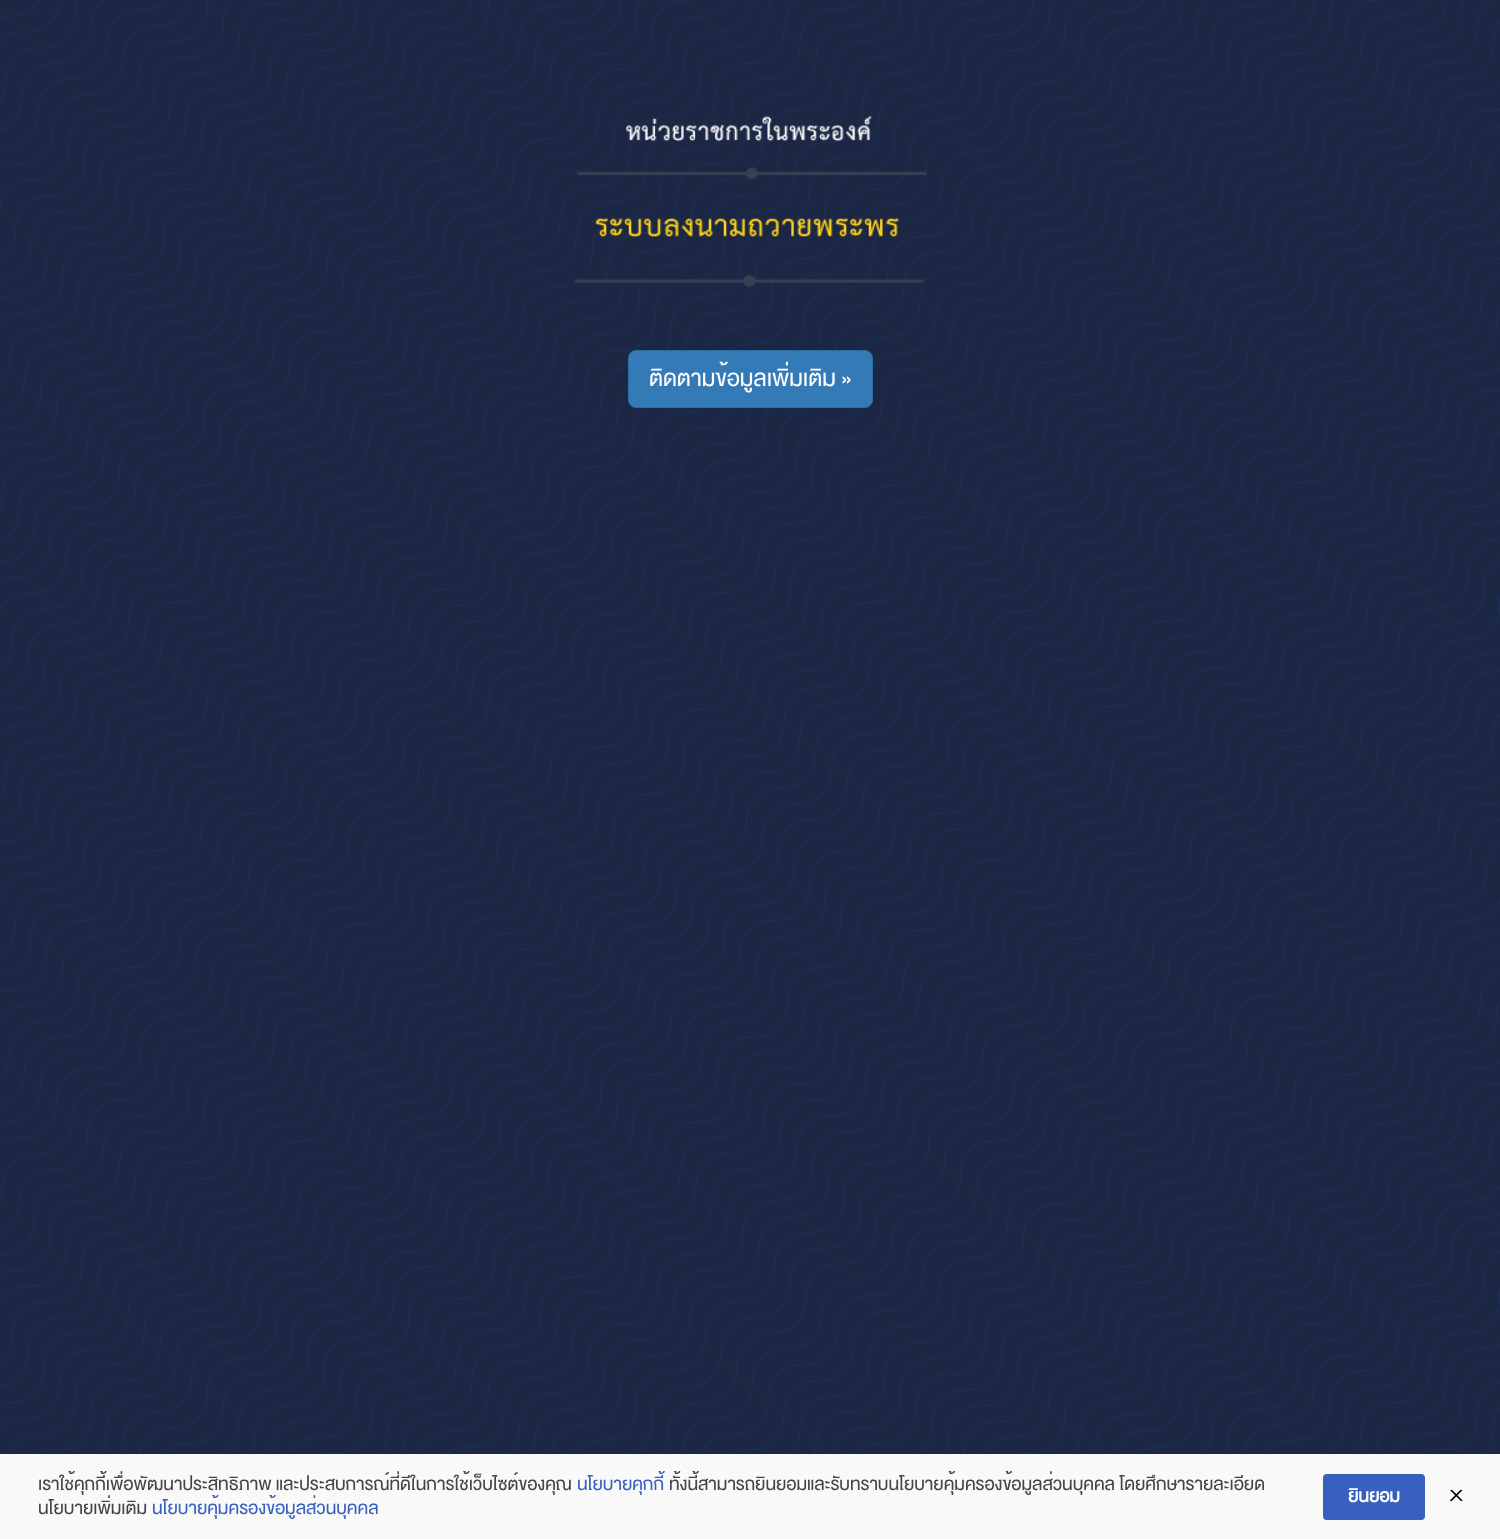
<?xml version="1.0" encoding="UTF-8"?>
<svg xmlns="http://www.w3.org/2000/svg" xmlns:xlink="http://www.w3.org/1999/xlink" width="1500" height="1539">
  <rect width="100%" height="100%" fill="#ffffff" />
  <image x="0" y="0" width="1500" height="1454" xlink:href="image1.png" />
  <image x="574" y="116" width="353" height="172" xlink:href="image2.png" />
  <rect x="628.5" y="350.5" width="244" height="57" rx="7.5" fill="#337ab7" stroke="#2e6da4" />
  <rect y="1454" width="1500" height="85" fill="#f9f9f9" />
  <rect x="1323" y="1474" width="102" height="46" rx="4" fill="#3860be" />
  <image x="1450" y="1490" width="13" height="11" xlink:href="image3.png" />
  <text x="649" y="386" style="font-family: 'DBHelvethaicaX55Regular'; font-size: 22.5px; fill: #ffffff">ติดตามข้อมูลเพิ่มเติม »</text>
  <text x="38" y="1490" style="font-family: 'DBHelvethaicaX55Regular'; font-size: 17.5px; fill: #444444">เราใช้คุกกี้เพื่อพัฒนาประสิทธิภาพ และประสบการณ์ที่ดีในการใช้เว็บไซต์ของคุณ</text>
  <text x="577" y="1490" style="font-family: 'DBHelvethaicaX55Regular'; font-size: 17.5px; fill: #3860be">นโยบายคุกกี้</text>
  <text x="669" y="1490" style="font-family: 'DBHelvethaicaX55Regular'; font-size: 17.5px; fill: #444444">ทั้งนี้สามารถยินยอมและรับทราบนโยบายคุ้มครองข้อมูลส่วนบุคคล โดยศึกษารายละเอียด</text>
  <text x="38" y="1514" style="font-family: 'DBHelvethaicaX55Regular'; font-size: 17.5px; fill: #444444">นโยบายเพิ่มเติม</text>
  <text x="152" y="1514" style="font-family: 'DBHelvethaicaX55Regular'; font-size: 17.5px; fill: #3860be">นโยบายคุ้มครองข้อมูลส่วนบุคคล</text>
  <text x="1348" y="1502" style="font-family: 'DBHelvethaicaX55Regular'; font-size: 17.5px; font-weight: bold; fill: #ffffff">ยินยอม</text>
</svg>
